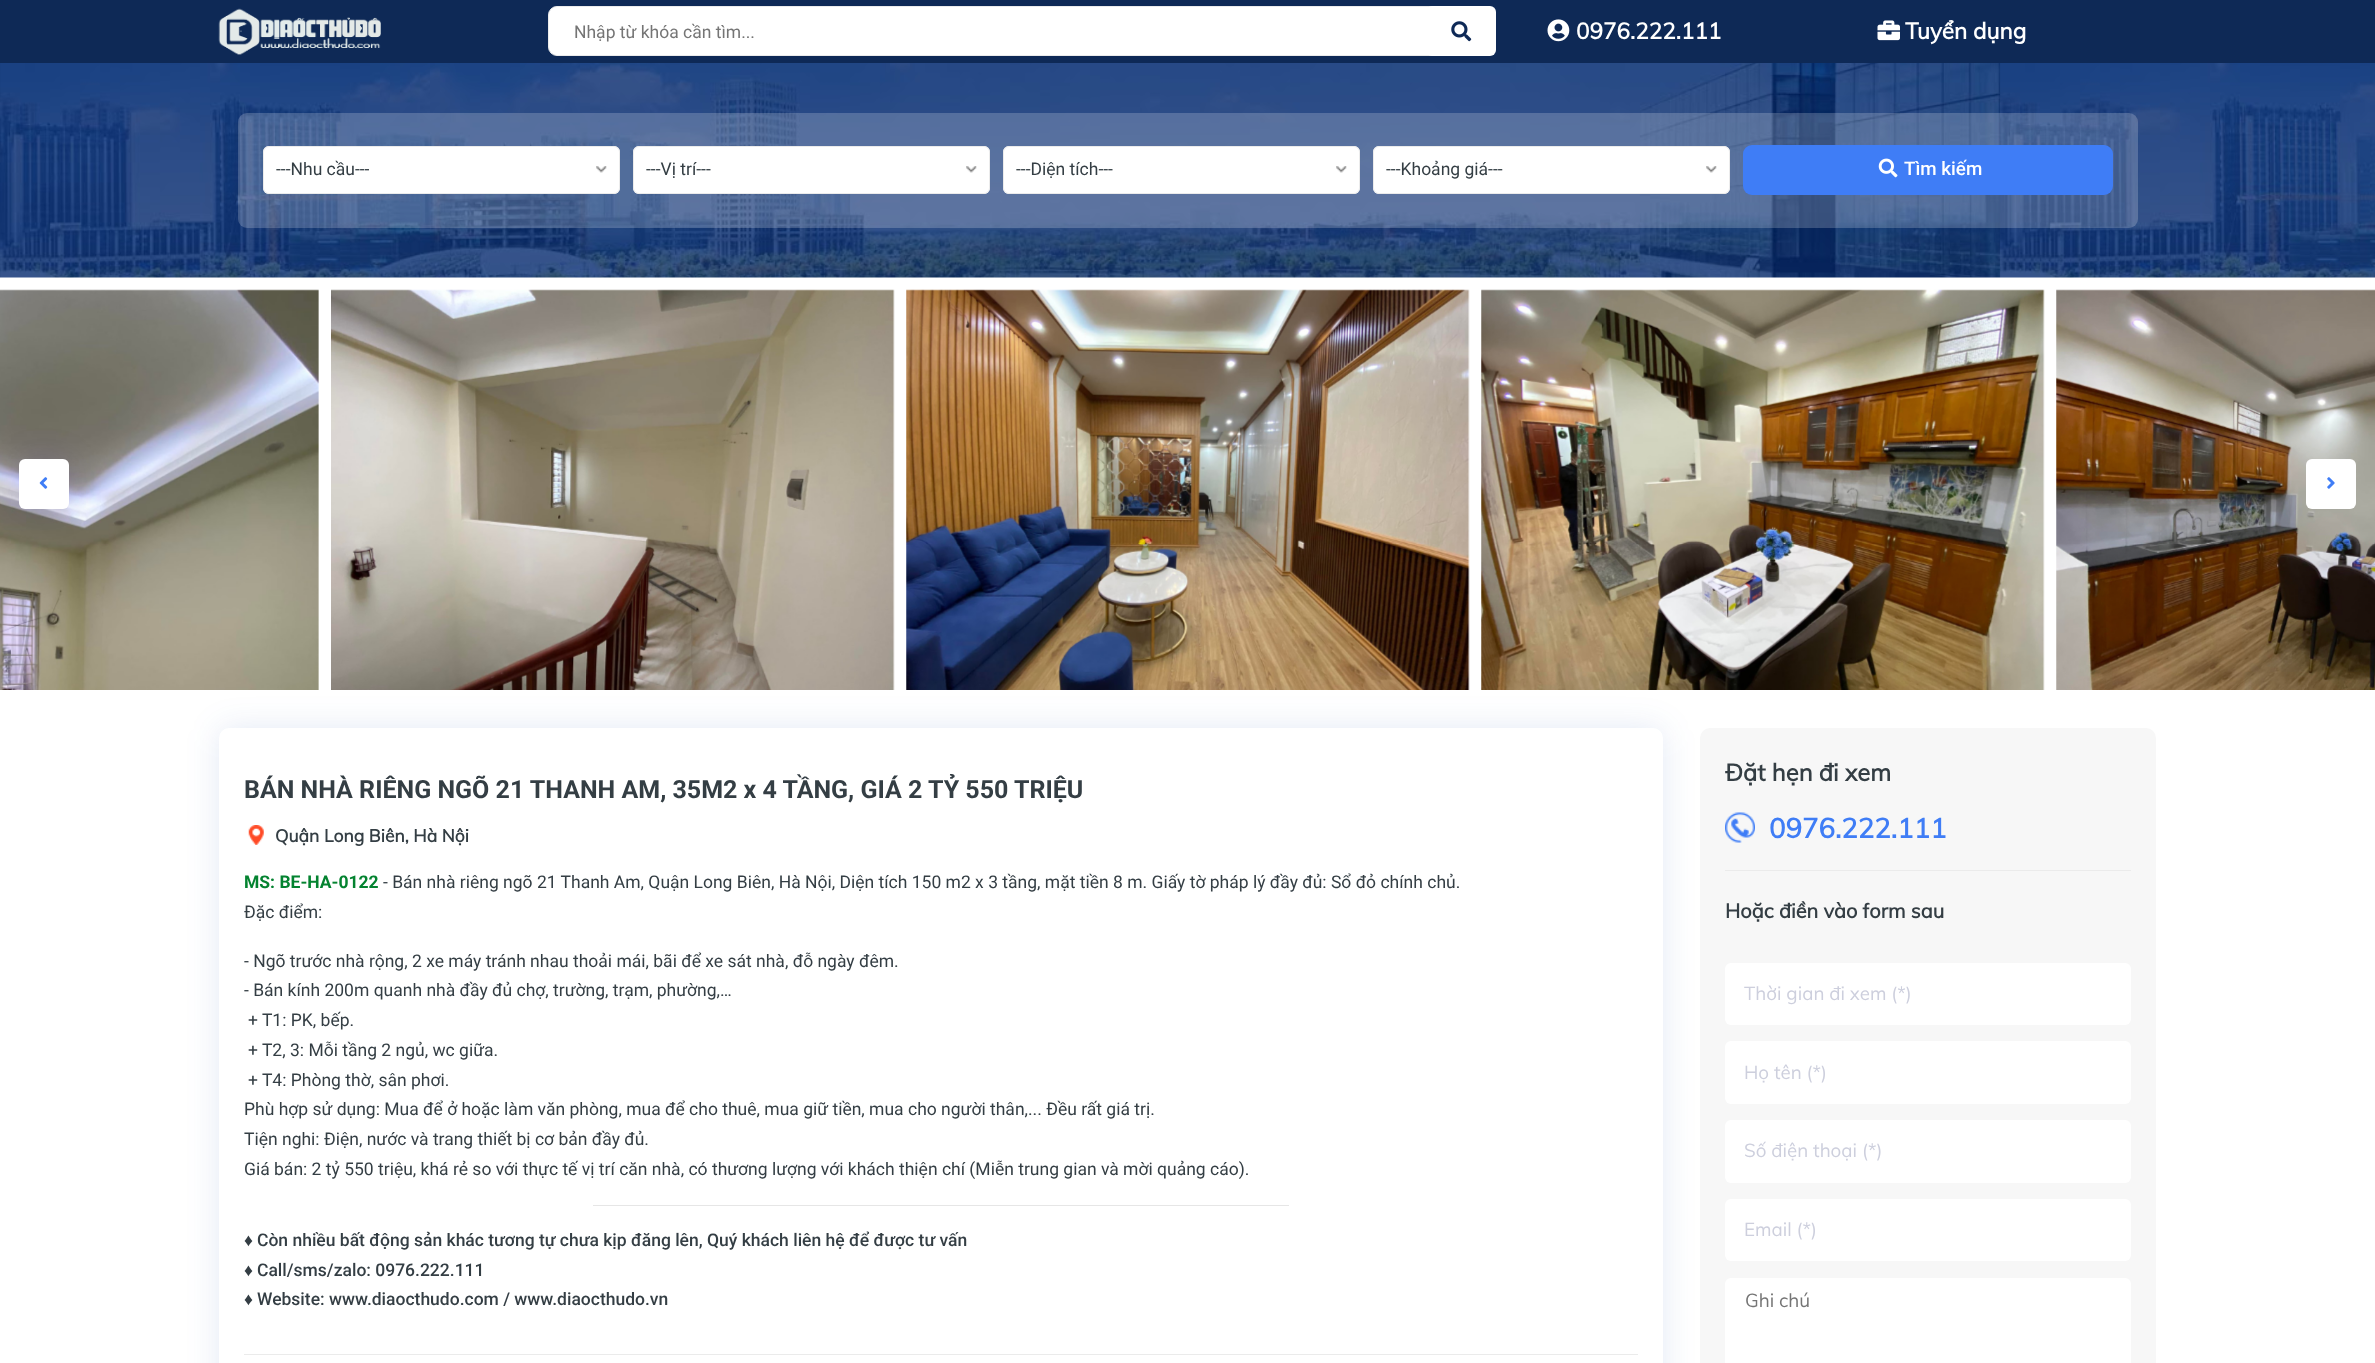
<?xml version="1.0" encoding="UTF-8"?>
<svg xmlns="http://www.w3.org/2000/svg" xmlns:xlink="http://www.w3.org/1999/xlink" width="2375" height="1363">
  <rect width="100%" height="100%" fill="#ffffff" />
  <rect width="2375" height="63" fill="#0e2956" />
  <image x="218" y="8" width="163" height="47" xlink:href="image1.png" />
  <rect x="548.5" y="6.5" width="940" height="49" rx="8.5" fill="#ffffff" stroke="#ebebeb" />
  <rect x="1426" y="6" width="70" height="50" rx="6" fill="#ffffff" />
  <image x="1451" y="21" width="21" height="21" xlink:href="image2.png" />
  <image x="1547" y="19" width="23" height="23" xlink:href="image3.png" />
  <image x="1877" y="20" width="23" height="21" xlink:href="image4.png" />
  <image x="0" y="63" width="2375" height="215" xlink:href="image5.png" />
  <rect x="238" y="113" width="1900" height="115" rx="9" fill="#ffffff" fill-opacity="0.2" />
  <rect x="263" y="146" width="357" height="48" rx="6" fill="#ffffff" />
  <image x="596" y="166" width="11" height="7" xlink:href="image6.png" />
  <rect x="263.5" y="146.5" width="356" height="47" rx="5.5" fill="none" stroke="#ebebeb" />
  <rect x="633" y="146" width="357" height="48" rx="6" fill="#ffffff" />
  <image x="966" y="166" width="11" height="7" xlink:href="image6.png" />
  <rect x="633.5" y="146.5" width="356" height="47" rx="5.5" fill="none" stroke="#ebebeb" />
  <rect x="1003" y="146" width="357" height="48" rx="6" fill="#ffffff" />
  <image x="1336" y="166" width="11" height="7" xlink:href="image6.png" />
  <rect x="1003.5" y="146.5" width="356" height="47" rx="5.5" fill="none" stroke="#ebebeb" />
  <rect x="1373" y="146" width="357" height="48" rx="6" fill="#ffffff" />
  <image x="1706" y="166" width="11" height="7" xlink:href="image6.png" />
  <rect x="1373.5" y="146.5" width="356" height="47" rx="5.5" fill="none" stroke="#ebebeb" />
  <rect x="1743" y="145" width="370" height="50" rx="9" fill="#3f7df6" />
  <image x="1878" y="158" width="20" height="20" xlink:href="image7.png" />
  <image x="0" y="289" width="319" height="401" xlink:href="image8.png" />
  <image x="331" y="289" width="564" height="401" xlink:href="image9.png" />
  <image x="906" y="289" width="564" height="401" xlink:href="image10.png" />
  <image x="1481" y="289" width="564" height="401" xlink:href="image11.png" />
  <image x="2056" y="289" width="319" height="401" xlink:href="image12.png" />
  <rect x="19" y="459" width="50" height="50" rx="6" fill="#1600ac" fill-opacity="0.12" filter="blur(16px)" />
  <rect x="19" y="459" width="50" height="50" rx="6" fill="#ffffff" />
  <image x="39" y="477" width="9" height="12" xlink:href="image13.png" />
  <rect x="2306" y="459" width="50" height="50" rx="6" fill="#ffffff" />
  <image x="2327" y="477" width="8" height="12" xlink:href="image14.png" />
  <rect x="219" y="728" width="1444" height="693" rx="10" fill="#1649ac" fill-opacity="0.12" filter="blur(16px)" />
  <rect x="219" y="728" width="1444" height="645" rx="10" fill="#ffffff" />
  <image x="248" y="825" width="16" height="20" xlink:href="image15.png" />
  <rect x="593" y="1205" width="696" height="1" fill="#e6e6e6" />
  <rect x="244" y="1354" width="1394" height="1" fill="#ebebeb" />
  <rect x="1700" y="728" width="456" height="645" rx="10" fill="#f7f7f7" />
  <image x="1725" y="812" width="30" height="31" xlink:href="image16.png" />
  <rect x="1725" y="870" width="406" height="1" fill="#ebebeb" />
  <rect x="1725" y="963" width="406" height="62" rx="6" fill="#ffffff" />
  <rect x="1725" y="1041" width="406" height="63" rx="6" fill="#ffffff" />
  <rect x="1725" y="1120" width="406" height="63" rx="6" fill="#ffffff" />
  <rect x="1725" y="1199" width="406" height="62" rx="6" fill="#ffffff" />
  <rect x="1725" y="1278" width="406" height="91" rx="6" fill="#ffffff" />
  <text x="574" y="38" style="font-family: Roboto; font-size: 17.5px; fill: #757575">Nhập từ khóa cần tìm...</text>
  <text x="1576" y="39" style="font-family: Muli; font-size: 22.5px; font-weight: bold; fill: #ffffff">0976.222.111</text>
  <text x="1905" y="39" style="font-family: Muli; font-size: 22.5px; font-weight: bold; fill: #ffffff">Tuyển dụng</text>
  <text x="276" y="175" style="font-family: Roboto; font-size: 17.5px; fill: #343e44">---Nhu cầu---</text>
  <text x="646" y="175" style="font-family: Roboto; font-size: 17.5px; fill: #343e44">---Vị trí---</text>
  <text x="1016" y="175" style="font-family: Roboto; font-size: 17.5px; fill: #343e44">---Diện tích---</text>
  <text x="1386" y="175" style="font-family: Roboto; font-size: 17.5px; fill: #343e44">---Khoảng giá---</text>
  <text x="1904" y="175" style="font-family: Roboto; font-size: 18.75px; font-weight: 500; fill: #ffffff">Tìm kiếm</text>
  <text x="244" y="798" style="font-family: Roboto; font-size: 25px; font-weight: bold; fill: #343e44">BÁN NHÀ RIÊNG NGÕ 21 THANH AM, 35M2 x 4 TẦNG, GIÁ 2 TỶ 550 TRIỆU</text>
  <text x="275" y="842" style="font-family: Muli; font-size: 17.5px; font-weight: bold; fill: #343e44">Quận Long Biên, Hà Nội</text>
  <text x="244" y="888" style="font-family: Roboto; font-size: 17.5px; font-weight: bold; fill: #048330">MS: BE-HA-0122</text>
  <text x="383" y="888" style="font-family: Roboto; font-size: 17.5px; fill: #343e44">- Bán nhà riêng ngõ 21 Thanh Am, Quận Long Biên, Hà Nội, Diện tích 150 m2 x 3 tầng, mặt tiền 8 m. Giấy tờ pháp lý đầy đủ: Sổ đỏ chính chủ.</text>
  <text x="244" y="918" style="font-family: Roboto; font-size: 17.5px; fill: #343e44">Đặc điểm:</text>
  <text x="244" y="967" style="font-family: Roboto; font-size: 17.5px; fill: #343e44">- Ngõ trước nhà rộng, 2 xe máy tránh nhau thoải mái, bãi để xe sát nhà, đỗ ngày đêm.</text>
  <text x="244" y="996" style="font-family: Roboto; font-size: 17.5px; fill: #343e44">- Bán kính 200m quanh nhà đầy đủ chợ, trường, trạm, phường,…</text>
  <text x="248" y="1026" style="font-family: Roboto; font-size: 17.5px; fill: #343e44">+ T1: PK, bếp.</text>
  <text x="248" y="1056" style="font-family: Roboto; font-size: 17.5px; fill: #343e44">+ T2, 3: Mỗi tầng 2 ngủ, wc giữa.</text>
  <text x="248" y="1086" style="font-family: Roboto; font-size: 17.5px; fill: #343e44">+ T4: Phòng thờ, sân phơi.</text>
  <text x="244" y="1115" style="font-family: Roboto; font-size: 17.5px; fill: #343e44">Phù hợp sử dụng: Mua để ở hoặc làm văn phòng, mua để cho thuê, mua giữ tiền, mua cho người thân,... Đều rất giá trị.</text>
  <text x="244" y="1145" style="font-family: Roboto; font-size: 17.5px; fill: #343e44">Tiện nghi: Điện, nước và trang thiết bị cơ bản đầy đủ.</text>
  <text x="244" y="1175" style="font-family: Roboto; font-size: 17.5px; fill: #343e44">Giá bán: 2 tỷ 550 triệu, khá rẻ so với thực tế vị trí căn nhà, có thương lượng với khách thiện chí (Miễn trung gian và mời quảng cáo).</text>
  <text x="244" y="1246" style="font-family: Liberation Sans; font-size: 17.5px; fill: #343e44">♦</text>
  <text x="257" y="1246" style="font-family: Roboto; font-size: 17.5px; font-weight: 500; fill: #343e44">Còn nhiều bất động sản khác tương tự chưa kịp đăng lên, Quý khách liên hệ để được tư vấn</text>
  <text x="244" y="1276" style="font-family: Liberation Sans; font-size: 17.5px; fill: #343e44">♦</text>
  <text x="257" y="1276" style="font-family: Roboto; font-size: 17.5px; font-weight: 500; fill: #343e44">Call/sms/zalo: 0976.222.111</text>
  <text x="244" y="1305" style="font-family: Liberation Sans; font-size: 17.5px; fill: #343e44">♦</text>
  <text x="257" y="1305" style="font-family: Roboto; font-size: 17.5px; font-weight: 500; fill: #343e44">Website: www.diaocthudo.com / www.diaocthudo.vn</text>
  <text x="1725" y="781" style="font-family: Muli; font-size: 23.75px; font-weight: bold; fill: #343e44">Đặt hẹn đi xem</text>
  <text x="1769" y="838" style="font-family: Muli; font-size: 27.5px; font-weight: bold; fill: #3f7df6">0976.222.111</text>
  <text x="1725" y="918" style="font-family: Muli; font-size: 20px; font-weight: bold; fill: #343e44">Hoặc điền vào form sau</text>
  <text x="1744" y="1000" style="font-family: Muli; font-size: 18.75px; fill: #cdcfdd">Thời gian đi xem (*)</text>
  <text x="1744" y="1079" style="font-family: Muli; font-size: 18.75px; fill: #cdcfdd">Họ tên (*)</text>
  <text x="1744" y="1157" style="font-family: Muli; font-size: 18.75px; fill: #cdcfdd">Số điện thoại (*)</text>
  <text x="1744" y="1236" style="font-family: Muli; font-size: 18.75px; fill: #cdcfdd">Email (*)</text>
  <text x="1745" y="1307" style="font-family: Muli; font-size: 18.75px; fill: #757575">Ghi chú</text>
</svg>
